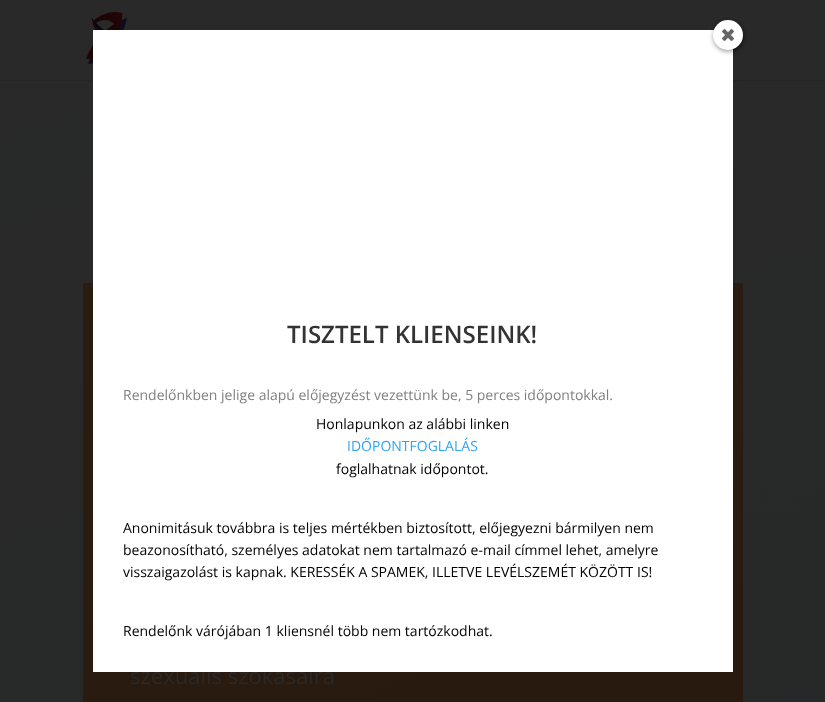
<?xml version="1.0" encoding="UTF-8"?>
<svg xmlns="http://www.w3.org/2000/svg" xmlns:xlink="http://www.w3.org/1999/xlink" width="825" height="702">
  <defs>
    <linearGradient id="g1" gradientUnits="userSpaceOnUse" x1="-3.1" y1="80" x2="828" y2="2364"><stop offset="0" stop-color="#292929" /><stop offset="1" stop-color="#232628" /></linearGradient>
    <linearGradient id="g2" gradientUnits="userSpaceOnUse" x1="-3.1" y1="80" x2="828" y2="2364"><stop offset="0" stop-color="#252525" /><stop offset="1" stop-color="#202224" /></linearGradient>
    <linearGradient id="g3" gradientUnits="userSpaceOnUse" x1="210" y1="237" x2="616" y2="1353"><stop offset="0" stop-color="#291d10" /><stop offset="1" stop-color="#29170f" /></linearGradient>
  </defs>
  <rect width="100%" height="100%" fill="#ffffff" />
  <rect width="825" height="80" fill="#292929" />
  <rect x="713" y="22" width="30" height="30" rx="15" fill="#000000" fill-opacity="0.34" filter="blur(2px)" />
  <image x="86" y="12" width="42" height="52" xlink:href="image2.png" />
  <rect y="81" width="825" height="621" fill="url(#g1)" />
  <rect y="80" width="825" height="1" fill="url(#g2)" />
  <rect x="83" y="283" width="660" height="419" fill="url(#g3)" />
  <text x="130" y="684" style="font-family: Open Sans; font-size: 22px; fill: #292929">szexuális szokásaira</text>
  <rect x="93" y="30" width="640" height="642" fill="#ffffff" />
  <rect x="713" y="22" width="30" height="30" rx="15" fill="#000000" fill-opacity="0.34" filter="blur(2px)" />
  <circle cx="728" cy="35" r="15" fill="#ffffff" />
  <image x="722" y="29" width="12" height="12" xlink:href="image1.png" />
  <text x="123" y="636" style="font-family: Open Sans; font-size: 14px; fill: #000000">Rendelőnk várójában 1 kliensnél több nem tartózkodhat.</text>
  <text x="123" y="577" style="font-family: Open Sans; font-size: 14px; fill: #000000">visszaigazolást is kapnak. KERESSÉK A SPAMEK, ILLETVE LEVÉLSZEMÉT KÖZÖTT IS!</text>
  <text x="123" y="555" style="font-family: Open Sans; font-size: 14px; fill: #000000">beazonosítható, személyes adatokat nem tartalmazó e-mail címmel lehet, amelyre</text>
  <text x="123" y="533" style="font-family: Open Sans; font-size: 14px; fill: #000000">Anonimitásuk továbbra is teljes mértékben biztosított, előjegyezni bármilyen nem</text>
  <text x="336" y="474" style="font-family: Open Sans; font-size: 14px; fill: #000000">foglalhatnak időpontot.</text>
  <text x="347" y="451" style="font-family: Open Sans; font-size: 14px; fill: #2ea3f2">IDŐPONTFOGLALÁS</text>
  <text x="316" y="429" style="font-family: Open Sans; font-size: 14px; fill: #000000">Honlapunkon az alábbi linken</text>
  <text x="123" y="400" style="font-family: Open Sans; font-size: 14px; fill: #808080">Rendelőnkben jelige alapú előjegyzést vezettünk be, 5 perces időpontokkal.</text>
  <text x="287" y="343" style="font-family: Open Sans; font-size: 24px; font-weight: 600; fill: #333333">TISZTELT KLIENSEINK!</text>
</svg>
